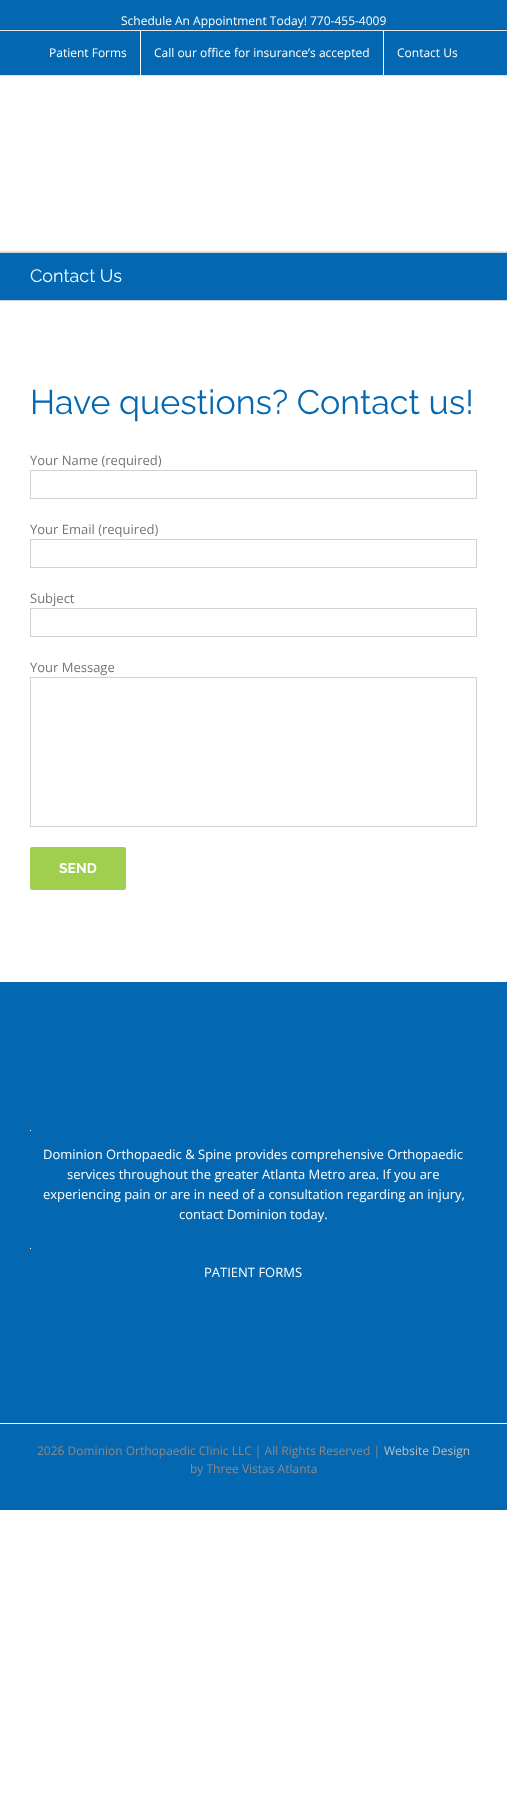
<?xml version="1.0" encoding="UTF-8"?>
<svg xmlns="http://www.w3.org/2000/svg" xmlns:xlink="http://www.w3.org/1999/xlink" width="507" height="1806">
  <rect width="100%" height="100%" fill="#ffffff" />
  <rect width="507" height="75" fill="#0368b1" />
  <rect y="75" width="507" height="1" fill="#e5e5e5" />
  <rect y="30" width="507" height="1" fill="#e5e5e5" />
  <rect x="140" y="31" width="1" height="44" fill="#ffffff" />
  <rect x="383" y="31" width="1" height="44" fill="#ffffff" />
  <rect y="251" width="507" height="1" fill="#e5e5e5" />
  <rect y="253" width="507" height="47" fill="#0368b1" />
  <rect y="252" width="507" height="1" fill="#d2d3d4" />
  <rect y="300" width="507" height="1" fill="#d2d3d4" />
  <rect x="30.5" y="470.5" width="446" height="28" fill="none" stroke="#d2d2d2" />
  <rect x="30.5" y="539.5" width="446" height="28" fill="none" stroke="#d2d2d2" />
  <rect x="30.5" y="608.5" width="446" height="28" fill="none" stroke="#d2d2d2" />
  <rect x="30.5" y="677.5" width="446" height="149" fill="none" stroke="#d2d2d2" />
  <rect x="30" y="847" width="96" height="43" rx="2" fill="#a0ce4e" />
  <rect y="982" width="507" height="441" fill="#0368b1" />
  <rect x="30" y="1130" width="1" height="1" fill="#ffffff" />
  <rect x="30" y="1248" width="1" height="1" fill="#ffffff" />
  <rect y="1424" width="507" height="86" fill="#0368b1" />
  <text x="121" y="25" style="font-family: Open Sans; font-size: 12px; fill: #ffffff">Schedule An Appointment Today! 770-455-4009</text>
  <text x="49" y="57" style="font-family: Open Sans; font-size: 12px; fill: #ffffff">Patient Forms</text>
  <text x="154" y="57" style="font-family: Open Sans; font-size: 12px; fill: #ffffff">Call our office for insurance’s accepted</text>
  <text x="397" y="57" style="font-family: Open Sans; font-size: 12px; fill: #ffffff">Contact Us</text>
  <text x="30" y="282" style="font-family: Raleway; font-size: 18px; font-weight: 100; fill: #ffffff">Contact Us</text>
  <text x="30" y="414" style="font-family: Raleway; font-size: 34px; font-weight: 100; fill: #0368b1">Have questions? Contact us!</text>
  <text x="30" y="465" style="font-family: Open Sans; font-size: 13px; fill: #747474">Your Name (required)</text>
  <text x="30" y="534" style="font-family: Open Sans; font-size: 13px; fill: #747474">Your Email (required)</text>
  <text x="30" y="603" style="font-family: Open Sans; font-size: 13px; fill: #747474">Subject</text>
  <text x="30" y="672" style="font-family: Open Sans; font-size: 13px; fill: #747474">Your Message</text>
  <text x="59" y="873" style="font-family: 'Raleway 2'; font-size: 14px; font-weight: 100; fill: #ffffff">SEND</text>
  <text x="43" y="1159" style="font-family: Open Sans; font-size: 13px; fill: #ffffff">Dominion Orthopaedic &amp; Spine provides comprehensive Orthopaedic</text>
  <text x="67" y="1179" style="font-family: Open Sans; font-size: 13px; fill: #ffffff">services throughout the greater Atlanta Metro area. If you are</text>
  <text x="43" y="1199" style="font-family: Open Sans; font-size: 13px; fill: #ffffff">experiencing pain or are in need of a consultation regarding an injury,</text>
  <text x="179" y="1219" style="font-family: Open Sans; font-size: 13px; fill: #ffffff">contact Dominion today.</text>
  <text x="204" y="1277" style="font-family: Open Sans; font-size: 13px; fill: #ffffff">PATIENT FORMS</text>
  <text x="37" y="1455" style="font-family: Open Sans; font-size: 12px; fill: #8c8989">2026 Dominion Orthopaedic Clinic LLC | All Rights Reserved |</text>
  <text x="384" y="1455" style="font-family: Open Sans; font-size: 12px; fill: #bfbfbf">Website Design</text>
  <text x="190" y="1473" style="font-family: Open Sans; font-size: 12px; fill: #8c8989">by Three Vistas Atlanta</text>
</svg>
